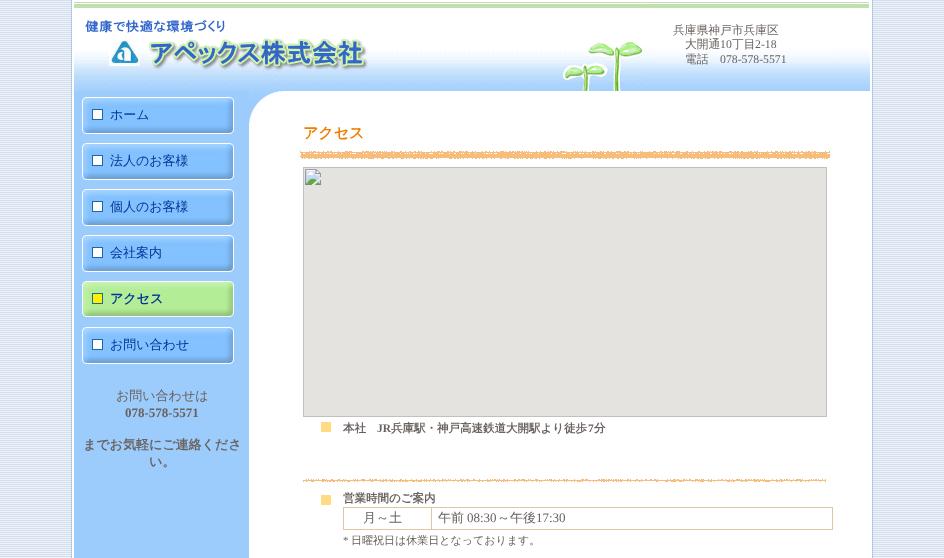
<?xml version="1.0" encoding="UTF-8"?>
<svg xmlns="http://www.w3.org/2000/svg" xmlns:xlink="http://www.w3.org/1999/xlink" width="944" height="558">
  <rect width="100%" height="100%" fill="#ffffff" />
  <image x="0" y="0" width="944" height="558" xlink:href="image1.png" />
  <rect x="72" width="800" height="91" fill="#ffffff" />
  <rect x="872" width="1" height="558" fill="#b6c7e3" />
  <rect x="71" width="1" height="558" fill="#b6c7e3" />
  <image x="74" y="2" width="568" height="89" xlink:href="image2.png" />
  <image x="642" y="2" width="228" height="89" xlink:href="image3.png" />
  <rect x="249" y="91" width="623" height="467" fill="#ffffff" />
  <rect x="74" y="91" width="175" height="467" fill="#9cccfc" />
  <rect x="72" y="91" width="2" height="467" fill="#fffffe" />
  <image x="82" y="97" width="152" height="37" xlink:href="image4.png" />
  <image x="82" y="143" width="152" height="37" xlink:href="image4.png" />
  <image x="82" y="189" width="152" height="37" xlink:href="image4.png" />
  <image x="82" y="235" width="152" height="37" xlink:href="image4.png" />
  <image x="82" y="281" width="152" height="36" xlink:href="image5.png" />
  <image x="82" y="327" width="152" height="37" xlink:href="image4.png" />
  <image x="249" y="91" width="30" height="33" xlink:href="image6.png" />
  <image x="280" y="91" width="4" height="1" xlink:href="image7.png" />
  <image x="300" y="151" width="530" height="8" xlink:href="image8.png" />
  <image x="303" y="167" width="524" height="250" xlink:href="image9.png" />
  <rect x="321" y="422" width="10" height="10" fill="#ffdb84" />
  <image x="303" y="479" width="523" height="3" xlink:href="image10.png" />
  <rect x="321" y="495" width="10" height="10" fill="#ffdb84" />
  <rect x="343" y="507" width="88" height="1" fill="#e0c6a5" />
  <rect x="343" y="529" width="88" height="1" fill="#e0c6a5" />
  <rect x="343" y="507" width="1" height="23" fill="#e0c6a5" />
  <rect x="431.5" y="507.5" width="401" height="22" fill="none" stroke="#e0c6a5" />
  <text x="673" y="34" style="font-family: WenQuanYi Zen Hei; font-size: 11.75px; font-weight: 500; fill: #69625f">兵庫県神戸市兵庫区</text>
  <text x="685" y="48" style="font-family: WenQuanYi Zen Hei; font-size: 11.75px; font-weight: 500; fill: #69625f">大開通</text>
  <text x="720" y="48" style="font-family: Liberation Serif; font-size: 11.75px; fill: #69625f">10</text>
  <text x="732" y="48" style="font-family: WenQuanYi Zen Hei; font-size: 11.75px; font-weight: 500; fill: #69625f">丁目</text>
  <text x="755" y="48" style="font-family: Liberation Serif; font-size: 11.75px; fill: #69625f">2-18</text>
  <text x="685" y="63" style="font-family: WenQuanYi Zen Hei; font-size: 11.75px; font-weight: 500; fill: #69625f">電話</text>
  <text x="720" y="63" style="font-family: Liberation Serif; font-size: 11.75px; fill: #69625f">078-578-5571</text>
  <text x="110" y="119" style="font-family: WenQuanYi Zen Hei; font-size: 13px; font-weight: 500; fill: #003497">ホーム</text>
  <text x="110" y="165" style="font-family: WenQuanYi Zen Hei; font-size: 13px; font-weight: 500; fill: #003497">法人のお客様</text>
  <text x="110" y="211" style="font-family: WenQuanYi Zen Hei; font-size: 13px; font-weight: 500; fill: #003497">個人のお客様</text>
  <text x="110" y="257" style="font-family: WenQuanYi Zen Hei; font-size: 13px; font-weight: 500; fill: #003497">会社案内</text>
  <text x="110" y="303" style="font-family: WenQuanYi Zen Hei; font-size: 13px; font-weight: bold; fill: #003497">アクセス</text>
  <text x="110" y="349" style="font-family: WenQuanYi Zen Hei; font-size: 13px; font-weight: 500; fill: #003497">お問い合わせ</text>
  <text x="116" y="400" style="font-family: WenQuanYi Zen Hei; font-size: 13px; font-weight: 500; fill: #69625f">お問い合わせは</text>
  <text x="125" y="417" style="font-family: Liberation Serif; font-size: 13px; font-weight: bold; fill: #69625f">078-578-5571</text>
  <text x="83" y="449" style="font-family: WenQuanYi Zen Hei; font-size: 13px; font-weight: bold; fill: #69625f">までお気軽にご連絡くださ</text>
  <text x="149" y="466" style="font-family: WenQuanYi Zen Hei; font-size: 13px; font-weight: bold; fill: #69625f">い。</text>
  <text x="303" y="138" style="font-family: WenQuanYi Zen Hei; font-size: 15px; font-weight: bold; fill: #f07e00">アクセス</text>
  <text x="343" y="432" style="font-family: WenQuanYi Zen Hei; font-size: 11.5px; font-weight: bold; fill: #69625f">本社</text>
  <text x="377" y="432" style="font-family: Liberation Serif; font-size: 11.5px; font-weight: bold; fill: #69625f">JR</text>
  <text x="391" y="432" style="font-family: WenQuanYi Zen Hei; font-size: 11.5px; font-weight: bold; fill: #69625f">兵庫駅・神戸高速鉄道大開駅より徒歩</text>
  <text x="588" y="432" style="font-family: Liberation Serif; font-size: 11.5px; font-weight: bold; fill: #69625f">7</text>
  <text x="594" y="432" style="font-family: WenQuanYi Zen Hei; font-size: 11.5px; font-weight: bold; fill: #69625f">分</text>
  <text x="343" y="502" style="font-family: WenQuanYi Zen Hei; font-size: 11.5px; font-weight: bold; fill: #69625f">営業時間のご案内</text>
  <text x="363" y="522" style="font-family: WenQuanYi Zen Hei; font-size: 13px; font-weight: 500; fill: #69625f">月～土</text>
  <text x="438" y="522" style="font-family: WenQuanYi Zen Hei; font-size: 13px; font-weight: 500; fill: #69625f">午前</text>
  <text x="467" y="522" style="font-family: Liberation Serif; font-size: 13px; fill: #69625f">08:30</text>
  <text x="497" y="522" style="font-family: WenQuanYi Zen Hei; font-size: 13px; font-weight: 500; fill: #69625f">～午後</text>
  <text x="536" y="522" style="font-family: Liberation Serif; font-size: 13px; fill: #69625f">17:30</text>
  <text x="343" y="544" style="font-family: Liberation Serif; font-size: 11px; fill: #69625f">*</text>
  <text x="351" y="544" style="font-family: WenQuanYi Zen Hei; font-size: 11px; font-weight: 500; fill: #69625f">日曜祝日は休業日となっております。</text>
</svg>
